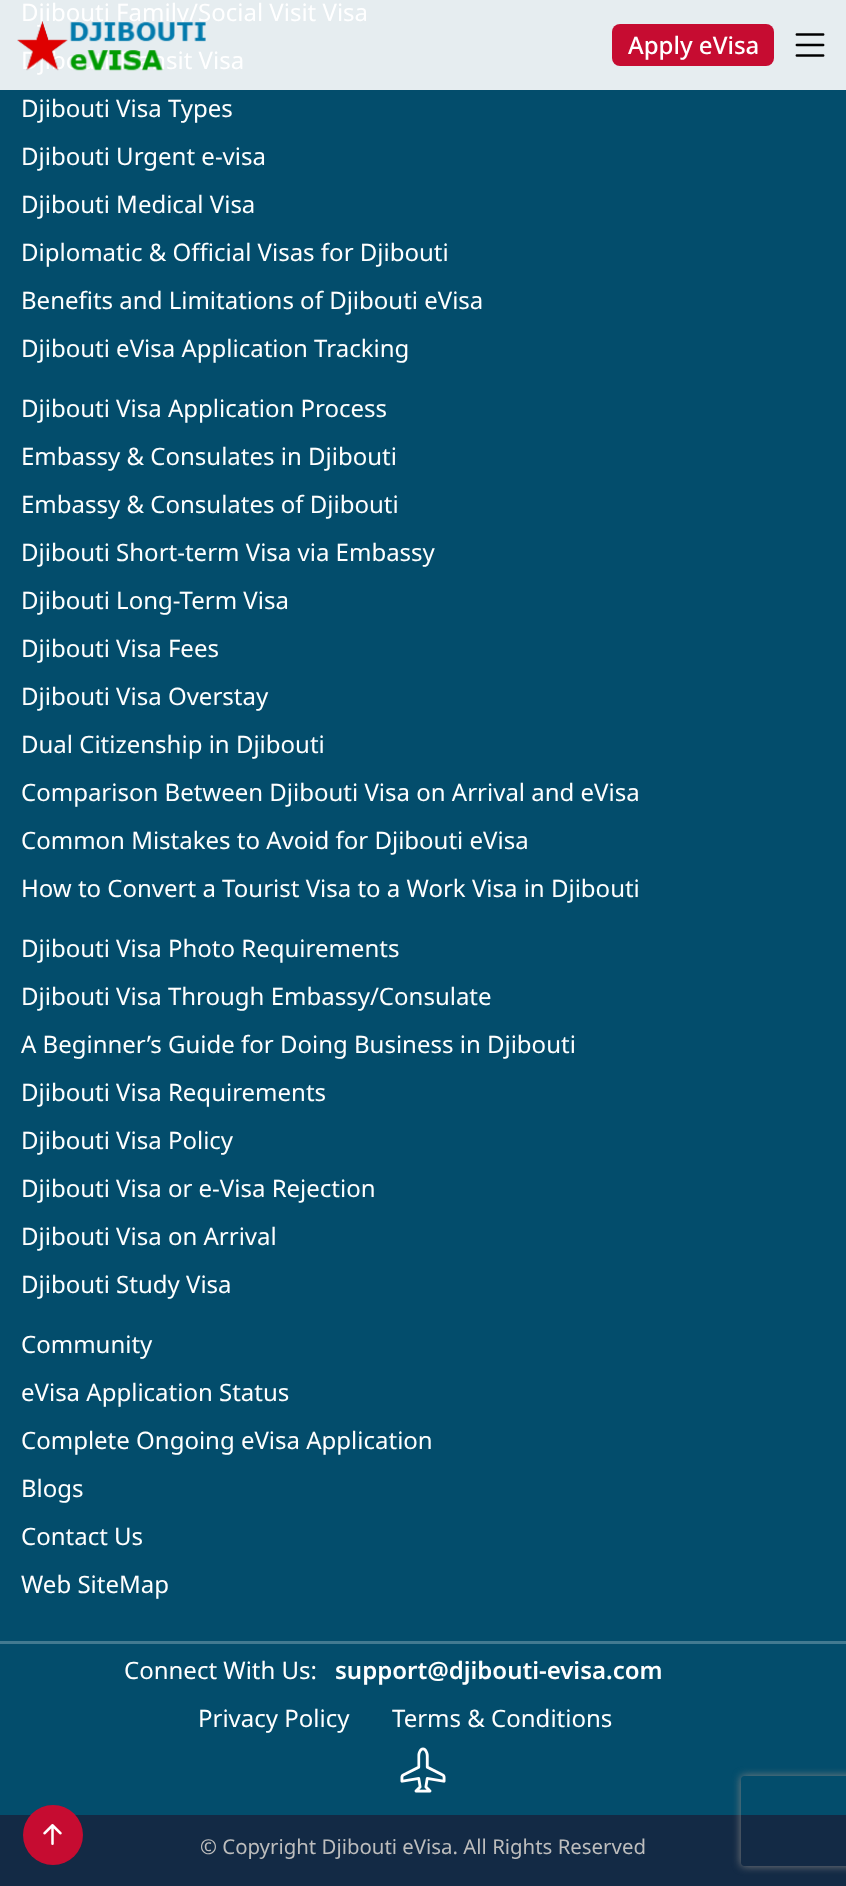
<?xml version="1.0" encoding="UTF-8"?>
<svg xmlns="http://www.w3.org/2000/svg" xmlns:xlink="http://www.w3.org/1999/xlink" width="846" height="1886">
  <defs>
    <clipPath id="clip1"><path d="M 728 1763 h 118 v 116 h -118 z m 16 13 h 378 c 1.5 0 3 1.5 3 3 v 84 c 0 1.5 -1.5 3 -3 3 h -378 c -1.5 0 -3 -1.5 -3 -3 v -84 c 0 -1.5 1.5 -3 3 -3 z" clip-rule="evenodd" /></clipPath>
  </defs>
  <rect width="100%" height="100%" fill="#034d6c" />
  <rect width="846" height="90" fill="#e6edf0" />
  <rect y="1641" width="846" height="3" fill="#427a91" />
  <image x="400" y="1747" width="46" height="46" xlink:href="image1.png" />
  <rect y="1815" width="846" height="71" fill="#132a45" />
  <rect x="612" y="24" width="162" height="42" rx="8" fill="#c60c31" />
  <image x="795" y="33" width="30" height="24" xlink:href="image3.png" />
  <circle cx="53" cy="1835" r="30" fill="#c60c31" />
  <image x="43" y="1824" width="19" height="21" xlink:href="image4.png" />
  <g clip-path="url(#clip1)">
    <rect x="741" y="1776" width="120" height="90" rx="3" fill="#808080" filter="blur(4px)" />
  </g>
  <text x="21" y="21" style="font-family: Noto Sans; font-size: 24px; fill: #ffffff">Djibouti Family/Social Visit Visa</text>
  <text x="21" y="69" style="font-family: Noto Sans; font-size: 24px; fill: #ffffff">Djibouti Transit Visa</text>
  <text x="21" y="117" style="font-family: Noto Sans; font-size: 24px; fill: #ffffff">Djibouti Visa Types</text>
  <text x="21" y="165" style="font-family: Noto Sans; font-size: 24px; fill: #ffffff">Djibouti Urgent e-visa</text>
  <text x="21" y="213" style="font-family: Noto Sans; font-size: 24px; fill: #ffffff">Djibouti Medical Visa</text>
  <text x="21" y="261" style="font-family: Noto Sans; font-size: 24px; fill: #ffffff">Diplomatic &amp; Official Visas for Djibouti</text>
  <text x="21" y="309" style="font-family: Noto Sans; font-size: 24px; fill: #ffffff">Benefits and Limitations of Djibouti eVisa</text>
  <text x="21" y="357" style="font-family: Noto Sans; font-size: 24px; fill: #ffffff">Djibouti eVisa Application Tracking</text>
  <text x="21" y="417" style="font-family: Noto Sans; font-size: 24px; fill: #ffffff">Djibouti Visa Application Process</text>
  <text x="21" y="465" style="font-family: Noto Sans; font-size: 24px; fill: #ffffff">Embassy &amp; Consulates in Djibouti</text>
  <text x="21" y="513" style="font-family: Noto Sans; font-size: 24px; fill: #ffffff">Embassy &amp; Consulates of Djibouti</text>
  <text x="21" y="561" style="font-family: Noto Sans; font-size: 24px; fill: #ffffff">Djibouti Short-term Visa via Embassy</text>
  <text x="21" y="609" style="font-family: Noto Sans; font-size: 24px; fill: #ffffff">Djibouti Long-Term Visa</text>
  <text x="21" y="657" style="font-family: Noto Sans; font-size: 24px; fill: #ffffff">Djibouti Visa Fees</text>
  <text x="21" y="705" style="font-family: Noto Sans; font-size: 24px; fill: #ffffff">Djibouti Visa Overstay</text>
  <text x="21" y="753" style="font-family: Noto Sans; font-size: 24px; fill: #ffffff">Dual Citizenship in Djibouti</text>
  <text x="21" y="801" style="font-family: Noto Sans; font-size: 24px; fill: #ffffff">Comparison Between Djibouti Visa on Arrival and eVisa</text>
  <text x="21" y="849" style="font-family: Noto Sans; font-size: 24px; fill: #ffffff">Common Mistakes to Avoid for Djibouti eVisa</text>
  <text x="21" y="897" style="font-family: Noto Sans; font-size: 24px; fill: #ffffff">How to Convert a Tourist Visa to a Work Visa in Djibouti</text>
  <text x="21" y="957" style="font-family: Noto Sans; font-size: 24px; fill: #ffffff">Djibouti Visa Photo Requirements</text>
  <text x="21" y="1005" style="font-family: Noto Sans; font-size: 24px; fill: #ffffff">Djibouti Visa Through Embassy/Consulate</text>
  <text x="21" y="1053" style="font-family: Noto Sans; font-size: 24px; fill: #ffffff">A Beginner’s Guide for Doing Business in Djibouti</text>
  <text x="21" y="1101" style="font-family: Noto Sans; font-size: 24px; fill: #ffffff">Djibouti Visa Requirements</text>
  <text x="21" y="1149" style="font-family: Noto Sans; font-size: 24px; fill: #ffffff">Djibouti Visa Policy</text>
  <text x="21" y="1197" style="font-family: Noto Sans; font-size: 24px; fill: #ffffff">Djibouti Visa or e-Visa Rejection</text>
  <text x="21" y="1245" style="font-family: Noto Sans; font-size: 24px; fill: #ffffff">Djibouti Visa on Arrival</text>
  <text x="21" y="1293" style="font-family: Noto Sans; font-size: 24px; fill: #ffffff">Djibouti Study Visa</text>
  <text x="21" y="1353" style="font-family: Noto Sans; font-size: 24px; fill: #ffffff">Community</text>
  <text x="21" y="1401" style="font-family: Noto Sans; font-size: 24px; fill: #ffffff">eVisa Application Status</text>
  <text x="21" y="1449" style="font-family: Noto Sans; font-size: 24px; fill: #ffffff">Complete Ongoing eVisa Application</text>
  <text x="21" y="1497" style="font-family: Noto Sans; font-size: 24px; fill: #ffffff">Blogs</text>
  <text x="21" y="1545" style="font-family: Noto Sans; font-size: 24px; fill: #ffffff">Contact Us</text>
  <text x="21" y="1593" style="font-family: Noto Sans; font-size: 24px; fill: #ffffff">Web SiteMap</text>
  <text x="124" y="1679" style="font-family: Noto Sans; font-size: 24px; fill: #ffffff">Connect With Us:</text>
  <text x="335" y="1679" style="font-family: Noto Sans; font-size: 24px; font-weight: 600; fill: #ffffff">support@djibouti-evisa.com</text>
  <text x="198" y="1727" style="font-family: Noto Sans; font-size: 24px; fill: #ffffff">Privacy Policy</text>
  <text x="392" y="1727" style="font-family: Noto Sans; font-size: 24px; fill: #ffffff">Terms &amp; Conditions</text>
  <text x="200" y="1854" style="font-family: Noto Sans; font-size: 20.4px; fill: #bdbdbd">© Copyright Djibouti eVisa. All Rights Reserved</text>
  <image x="17" y="21" width="189" height="50" xlink:href="image2.png" />
  <text x="628" y="54" style="font-family: Noto Sans; font-size: 24px; font-weight: 500; fill: #ffffff">Apply eVisa</text>
</svg>
